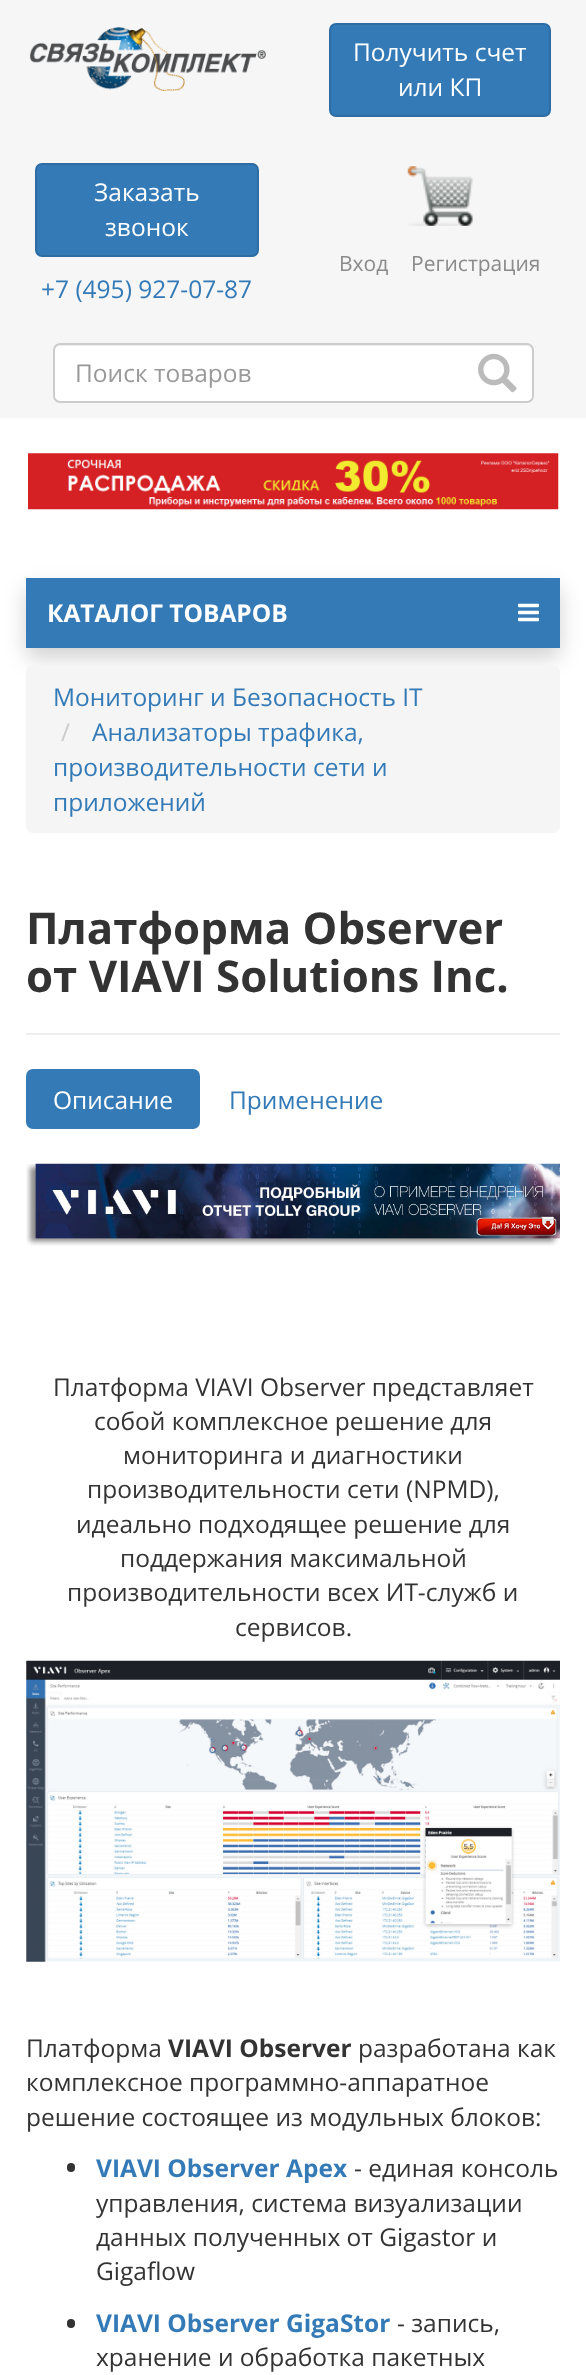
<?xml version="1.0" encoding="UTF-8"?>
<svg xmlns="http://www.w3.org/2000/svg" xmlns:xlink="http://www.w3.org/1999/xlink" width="586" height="2375">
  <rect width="100%" height="100%" fill="#ffffff" />
  <rect width="586" height="418" fill="#f6f6f6" />
  <image x="29" y="27" width="237" height="64" xlink:href="image1.png" />
  <rect x="330" y="24" width="220" height="92" rx="6" fill="#337ab7" stroke="#2e6da4" stroke-width="2" />
  <rect x="36" y="164" width="222" height="92" rx="6" fill="#337ab7" stroke="#2e6da4" stroke-width="2" />
  <image x="407" y="166" width="66" height="60" xlink:href="image2.png" />
  <rect x="53" y="343" width="481" height="60" rx="7" fill="#ffffff" />
  <path d="M 60 346 h 467 c 3 0 5 3 5 6 v -2 c 0 -3 -2 -5 -5 -5 h -468 c -3 0 -5 2 -5 5 v 2 c 0 -3 3 -6 6 -6 z" fill="#ececec" />
  <rect x="54" y="344" width="479" height="58" rx="6" fill="none" stroke="#cccccc" stroke-width="2" />
  <image x="478" y="353" width="39" height="40" xlink:href="image3.png" />
  <image x="28" y="453" width="531" height="57" xlink:href="image4.png" />
  <rect x="26" y="588" width="534" height="70" rx="7" fill="#000000" fill-opacity="0.18" filter="blur(10.5px)" />
  <rect x="26" y="578" width="534" height="70" fill="#337ab7" />
  <image x="518" y="603" width="21" height="19" xlink:href="image5.png" />
  <rect x="26" y="665" width="534" height="168" rx="7" fill="#f5f5f5" />
  <rect x="26" y="1033" width="534" height="2" fill="#eeeeee" />
  <rect x="26" y="1069" width="174" height="60" rx="7" fill="#337ab7" />
  <image x="26" y="1163" width="534" height="83" xlink:href="image6.png" />
  <image x="26" y="1660" width="534" height="302" xlink:href="image7.png" />
  <rect x="67" y="2163" width="8" height="9" rx="4" fill="#333333" />
  <rect x="67" y="2319" width="8" height="9" rx="4" fill="#333333" />
  <text x="353" y="61" style="font-family: Open Sans; font-size: 24.5px; fill: #ffffff">Получить счет</text>
  <text x="398" y="96" style="font-family: Open Sans; font-size: 24.5px; fill: #ffffff">или КП</text>
  <text x="94" y="201" style="font-family: Open Sans; font-size: 24.5px; fill: #ffffff">Заказать</text>
  <text x="105" y="236" style="font-family: Open Sans; font-size: 24.5px; fill: #ffffff">звонок</text>
  <text x="41" y="298" style="font-family: Open Sans; font-size: 24.5px; fill: #337ab7">+7 (495) 927-07-87</text>
  <text x="339" y="271" style="font-family: Open Sans; font-size: 21px; fill: #8b8b8b">Вход</text>
  <text x="411" y="271" style="font-family: Open Sans; font-size: 21px; fill: #8b8b8b">Регистрация</text>
  <text x="75" y="382" style="font-family: Open Sans; font-size: 24.5px; fill: #999999">Поиск товаров</text>
  <text x="47" y="622" style="font-family: Open Sans; font-size: 24.5px; font-weight: bold; fill: #ffffff">КАТАЛОГ ТОВАРОВ</text>
  <text x="53" y="706" style="font-family: Open Sans; font-size: 24.5px; fill: #337ab7">Мониторинг и Безопасность IT</text>
  <text x="61" y="741" style="font-family: Open Sans; font-size: 24.5px; fill: #cccccc">/</text>
  <text x="92" y="741" style="font-family: Open Sans; font-size: 24.5px; fill: #337ab7">Анализаторы трафика,</text>
  <text x="53" y="776" style="font-family: Open Sans; font-size: 24.5px; fill: #337ab7">производительности сети и</text>
  <text x="53" y="811" style="font-family: Open Sans; font-size: 24.5px; fill: #337ab7">приложений</text>
  <text x="26" y="944" style="font-family: Open Sans; font-size: 43.75px; font-weight: bold; fill: #333333">Платформа Observer</text>
  <text x="26" y="992" style="font-family: Open Sans; font-size: 43.75px; font-weight: bold; fill: #333333">от VIAVI Solutions Inc.</text>
  <text x="53" y="1109" style="font-family: Open Sans; font-size: 24.5px; fill: #ffffff">Описание</text>
  <text x="229" y="1109" style="font-family: Open Sans; font-size: 24.5px; fill: #337ab7">Применение</text>
  <text x="53" y="1396" style="font-family: Open Sans; font-size: 24.5px; fill: #333333">Платформа VIAVI Observer представляет</text>
  <text x="94" y="1430" style="font-family: Open Sans; font-size: 24.5px; fill: #333333">собой комплексное решение для</text>
  <text x="123" y="1464" style="font-family: Open Sans; font-size: 24.5px; fill: #333333">мониторинга и диагностики</text>
  <text x="87" y="1498" style="font-family: Open Sans; font-size: 24.5px; fill: #333333">производительности сети (NPMD),</text>
  <text x="76" y="1533" style="font-family: Open Sans; font-size: 24.5px; fill: #333333">идеально подходящее решение для</text>
  <text x="120" y="1567" style="font-family: Open Sans; font-size: 24.5px; fill: #333333">поддержания максимальной</text>
  <text x="67" y="1601" style="font-family: Open Sans; font-size: 24.5px; fill: #333333">производительности всех ИТ-служб и</text>
  <text x="235" y="1636" style="font-family: Open Sans; font-size: 24.5px; fill: #333333">сервисов.</text>
  <text x="26" y="2057" style="font-family: Open Sans; font-size: 24.5px; fill: #333333">Платформа</text>
  <text x="168" y="2057" style="font-family: Open Sans; font-size: 24.5px; font-weight: bold; fill: #333333">VIAVI Observer</text>
  <text x="358" y="2057" style="font-family: Open Sans; font-size: 24.5px; fill: #333333">разработана как</text>
  <text x="26" y="2091" style="font-family: Open Sans; font-size: 24.5px; fill: #333333">комплексное программно-аппаратное</text>
  <text x="26" y="2126" style="font-family: Open Sans; font-size: 24.5px; fill: #333333">решение состоящее из модульных блоков:</text>
  <text x="96" y="2177" style="font-family: Open Sans; font-size: 24.5px; font-weight: bold; fill: #337ab7">VIAVI Observer Apex</text>
  <text x="354" y="2177" style="font-family: Open Sans; font-size: 24.5px; fill: #333333">- единая консоль</text>
  <text x="96" y="2212" style="font-family: Open Sans; font-size: 24.5px; fill: #333333">управления, система визуализации</text>
  <text x="96" y="2246" style="font-family: Open Sans; font-size: 24.5px; fill: #333333">данных полученных от Gigastor и</text>
  <text x="96" y="2280" style="font-family: Open Sans; font-size: 24.5px; fill: #333333">Gigaflow</text>
  <text x="96" y="2332" style="font-family: Open Sans; font-size: 24.5px; font-weight: bold; fill: #337ab7">VIAVI Observer GigaStor</text>
  <text x="397" y="2332" style="font-family: Open Sans; font-size: 24.5px; fill: #333333">- запись,</text>
  <text x="96" y="2366" style="font-family: Open Sans; font-size: 24.5px; fill: #333333">хранение и обработка пакетных</text>
</svg>
